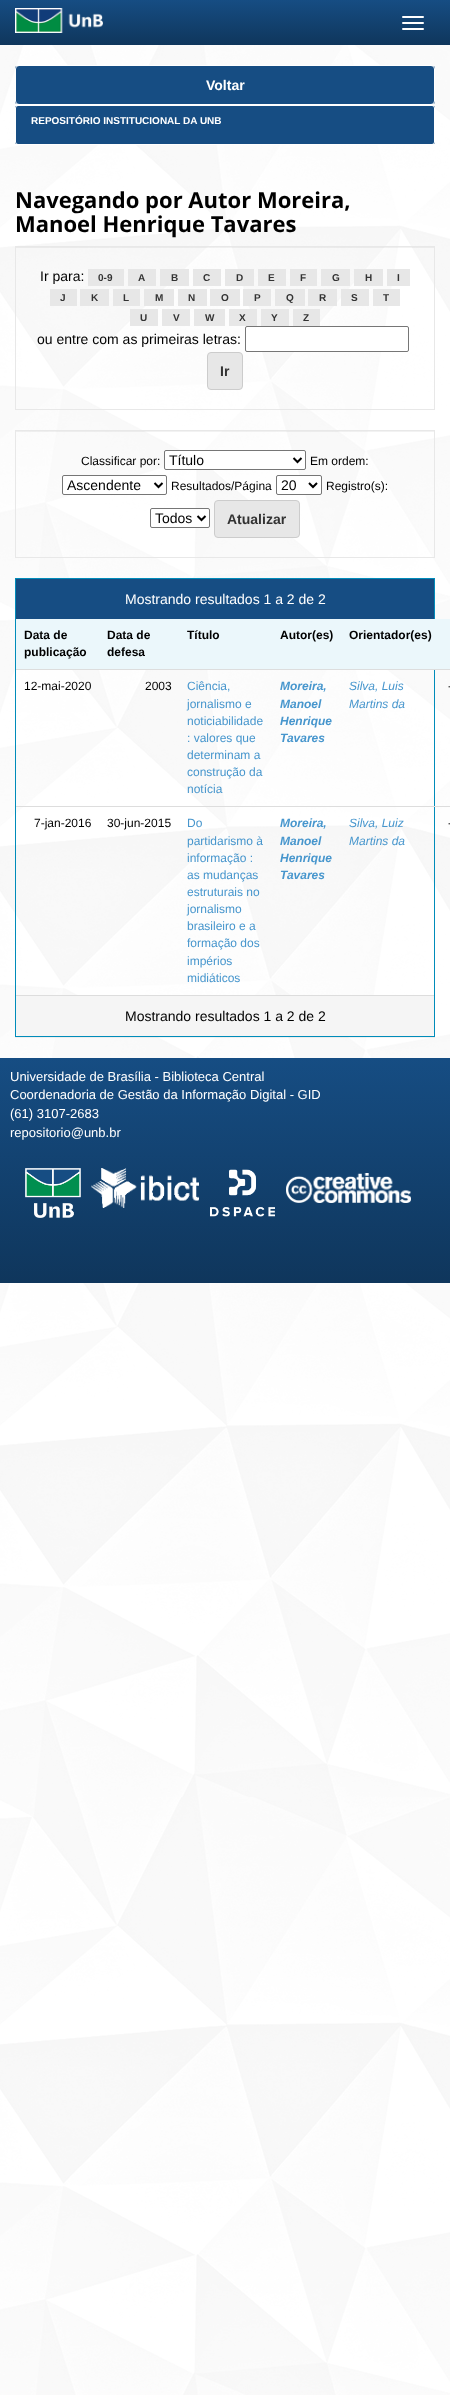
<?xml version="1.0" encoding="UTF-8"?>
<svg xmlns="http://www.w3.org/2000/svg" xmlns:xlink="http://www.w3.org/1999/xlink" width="450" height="2395">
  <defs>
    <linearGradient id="g1" gradientUnits="userSpaceOnUse" x1="225" y1="0" x2="225" y2="45"><stop offset="0" stop-color="#164d83" /><stop offset="1" stop-color="#0f365c" /></linearGradient>
    <clipPath id="clip1"><rect x="15" y="65" width="420" height="40" rx="4" /></clipPath>
    <clipPath id="clip2"><rect x="15" y="105" width="420" height="40" rx="3" /></clipPath>
    <clipPath id="clip3"><rect x="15" y="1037" width="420" height="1" /></clipPath>
    <linearGradient id="g2" gradientUnits="userSpaceOnUse" x1="225" y1="1058" x2="225" y2="1283"><stop offset="0" stop-color="#164d83" /><stop offset="1" stop-color="#0f365c" /></linearGradient>
  </defs>
  <rect width="100%" height="100%" fill="#ffffff" />
  <image x="0" y="45" width="450" height="2350" xlink:href="image1.png" />
  <rect width="450" height="45" fill="url(#g1)" />
  <image x="15" y="8" width="88" height="25" xlink:href="image2.png" />
  <rect x="402" y="16" width="22" height="2" rx="1" fill="#ffffff" />
  <rect x="402" y="22" width="22" height="2" rx="1" fill="#ffffff" />
  <rect x="402" y="28" width="22" height="2" rx="1" fill="#ffffff" />
  <g clip-path="url(#clip1)">
    <rect x="15" y="66" width="420" height="38" fill="#164d83" />
  </g>
  <rect x="15.5" y="65.5" width="419" height="39" rx="3.5" fill="none" stroke="#ffffff" />
  <g clip-path="url(#clip2)">
    <rect x="15" y="106" width="420" height="38" fill="#164d83" />
  </g>
  <rect x="15.5" y="105.5" width="419" height="39" rx="2.5" fill="none" stroke="#ffffff" />
  <rect x="16" y="247" width="418" height="1" fill="#000000" fill-opacity="0.05" />
  <rect x="15.5" y="246.5" width="419" height="163" fill="none" stroke="#e8e8e8" />
  <rect x="88" y="269" width="36" height="17" fill="#e7e7e7" />
  <rect x="128" y="269" width="28" height="17" fill="#e7e7e7" />
  <rect x="160" y="269" width="29" height="17" fill="#e7e7e7" />
  <rect x="193" y="269" width="28" height="17" fill="#e7e7e7" />
  <rect x="225" y="269" width="29" height="17" fill="#e7e7e7" />
  <rect x="258" y="269" width="28" height="17" fill="#e7e7e7" />
  <rect x="290" y="269" width="27" height="17" fill="#e7e7e7" />
  <rect x="321" y="269" width="29" height="17" fill="#e7e7e7" />
  <rect x="354" y="269" width="29" height="17" fill="#e7e7e7" />
  <rect x="387" y="269" width="23" height="17" fill="#e7e7e7" />
  <rect x="50" y="289" width="27" height="17" fill="#e7e7e7" />
  <rect x="80" y="289" width="29" height="17" fill="#e7e7e7" />
  <rect x="113" y="289" width="27" height="17" fill="#e7e7e7" />
  <rect x="144" y="289" width="30" height="17" fill="#e7e7e7" />
  <rect x="178" y="289" width="29" height="17" fill="#e7e7e7" />
  <rect x="210" y="289" width="30" height="17" fill="#e7e7e7" />
  <rect x="243" y="289" width="28" height="17" fill="#e7e7e7" />
  <rect x="275" y="289" width="30" height="17" fill="#e7e7e7" />
  <rect x="308" y="289" width="29" height="17" fill="#e7e7e7" />
  <rect x="341" y="289" width="28" height="17" fill="#e7e7e7" />
  <rect x="373" y="289" width="27" height="17" fill="#e7e7e7" />
  <rect x="130" y="309" width="28" height="17" fill="#e7e7e7" />
  <rect x="162" y="309" width="28" height="17" fill="#e7e7e7" />
  <rect x="194" y="309" width="31" height="17" fill="#e7e7e7" />
  <rect x="229" y="309" width="28" height="17" fill="#e7e7e7" />
  <rect x="261" y="309" width="28" height="17" fill="#e7e7e7" />
  <rect x="293" y="309" width="27" height="17" fill="#e7e7e7" />
  <rect x="245.5" y="326.5" width="163" height="25" rx="1.5" fill="#ffffff" stroke="#767676" />
  <rect x="207.5" y="352.5" width="35" height="37" rx="3.5" fill="#e7e7e7" stroke="#cccccc" />
  <rect x="16" y="431" width="418" height="1" fill="#000000" fill-opacity="0.05" />
  <rect x="15.5" y="430.5" width="419" height="127" fill="none" stroke="#e8e8e8" />
  <rect x="164.5" y="450.5" width="141" height="19" rx="1.5" fill="#ffffff" stroke="#767676" />
  <path d="M 293.5 458 l 4 4 l 4 -4" fill="none" stroke="#000000" stroke-width="2" />
  <rect x="62.5" y="475.5" width="104" height="19" rx="1.5" fill="#ffffff" stroke="#767676" />
  <path d="M 154.5 483 l 4 4 l 4 -4" fill="none" stroke="#000000" stroke-width="2" />
  <rect x="276.5" y="475.5" width="45" height="19" rx="1.5" fill="#ffffff" stroke="#767676" />
  <path d="M 309 483 l 4 4 l 4 -4" fill="none" stroke="#000000" stroke-width="2" />
  <rect x="150.5" y="508.5" width="59" height="19" rx="1.5" fill="#ffffff" stroke="#767676" />
  <path d="M 197.5 516 l 4 4 l 4 -4" fill="none" stroke="#000000" stroke-width="2" />
  <rect x="214.5" y="500.5" width="85" height="37" rx="3.5" fill="#e7e7e7" stroke="#cccccc" />
  <g clip-path="url(#clip3)">
    <rect x="15" y="579" width="420" height="459" fill="#000000" fill-opacity="0.05" filter="blur(0.5px)" />
  </g>
  <rect x="15.5" y="578.5" width="419" height="458" fill="none" stroke="#008cba" />
  <rect x="16" y="579" width="418" height="40" fill="#164d83" />
  <rect x="16" y="619" width="434" height="50" fill="#ebf7fb" />
  <rect x="16" y="669" width="434" height="1" fill="#dddddd" />
  <rect x="16" y="806" width="434" height="1" fill="#dddddd" />
  <path d="M 16 995 h 418 v 38 c 0 1.5 -1.5 3 -3 3 h -412 c -1.5 0 -3 -1.5 -3 -3 z" fill="#f5f5f5" />
  <rect x="16" y="995" width="418" height="1" fill="#dddddd" />
  <rect y="1058" width="450" height="225" fill="url(#g2)" />
  <image x="25" y="1168" width="56" height="50" xlink:href="image3.png" />
  <image x="91" y="1168" width="108" height="40" xlink:href="image4.png" />
  <image x="210" y="1169" width="65" height="48" xlink:href="image5.png" />
  <image x="286" y="1173" width="125" height="30" xlink:href="image6.png" />
  <text x="206" y="90" style="font-family: Liberation Sans; font-size: 14px; font-weight: bold; fill: #ffffff">Voltar</text>
  <text x="31" y="124" style="font-family: Liberation Sans; font-size: 10px; font-weight: bold; fill: #ffffff">REPOSITÓRIO INSTITUCIONAL DA UNB</text>
  <text x="15" y="208" style="font-family: Open Sans; font-size: 22px; font-weight: bold; fill: #000000">Navegando por Autor Moreira,</text>
  <text x="15" y="232" style="font-family: Open Sans; font-size: 22px; font-weight: bold; fill: #000000">Manoel Henrique Tavares</text>
  <text x="40" y="281" style="font-family: Liberation Sans; font-size: 14px; fill: #000000">Ir para:</text>
  <text x="98" y="281" style="font-family: Liberation Sans; font-size: 10px; font-weight: bold; fill: #333333">0-9</text>
  <text x="138" y="281" style="font-family: Liberation Sans; font-size: 10px; font-weight: bold; fill: #333333">A</text>
  <text x="171" y="281" style="font-family: Liberation Sans; font-size: 10px; font-weight: bold; fill: #333333">B</text>
  <text x="203" y="281" style="font-family: Liberation Sans; font-size: 10px; font-weight: bold; fill: #333333">C</text>
  <text x="236" y="281" style="font-family: Liberation Sans; font-size: 10px; font-weight: bold; fill: #333333">D</text>
  <text x="268" y="281" style="font-family: Liberation Sans; font-size: 10px; font-weight: bold; fill: #333333">E</text>
  <text x="300" y="281" style="font-family: Liberation Sans; font-size: 10px; font-weight: bold; fill: #333333">F</text>
  <text x="332" y="281" style="font-family: Liberation Sans; font-size: 10px; font-weight: bold; fill: #333333">G</text>
  <text x="365" y="281" style="font-family: Liberation Sans; font-size: 10px; font-weight: bold; fill: #333333">H</text>
  <text x="397" y="281" style="font-family: Liberation Sans; font-size: 10px; font-weight: bold; fill: #333333">I</text>
  <text x="60" y="301" style="font-family: Liberation Sans; font-size: 10px; font-weight: bold; fill: #333333">J</text>
  <text x="91" y="301" style="font-family: Liberation Sans; font-size: 10px; font-weight: bold; fill: #333333">K</text>
  <text x="123" y="301" style="font-family: Liberation Sans; font-size: 10px; font-weight: bold; fill: #333333">L</text>
  <text x="155" y="301" style="font-family: Liberation Sans; font-size: 10px; font-weight: bold; fill: #333333">M</text>
  <text x="188" y="301" style="font-family: Liberation Sans; font-size: 10px; font-weight: bold; fill: #333333">N</text>
  <text x="221" y="301" style="font-family: Liberation Sans; font-size: 10px; font-weight: bold; fill: #333333">O</text>
  <text x="254" y="301" style="font-family: Liberation Sans; font-size: 10px; font-weight: bold; fill: #333333">P</text>
  <text x="286" y="301" style="font-family: Liberation Sans; font-size: 10px; font-weight: bold; fill: #333333">Q</text>
  <text x="319" y="301" style="font-family: Liberation Sans; font-size: 10px; font-weight: bold; fill: #333333">R</text>
  <text x="351" y="301" style="font-family: Liberation Sans; font-size: 10px; font-weight: bold; fill: #333333">S</text>
  <text x="383" y="301" style="font-family: Liberation Sans; font-size: 10px; font-weight: bold; fill: #333333">T</text>
  <text x="140" y="321" style="font-family: Liberation Sans; font-size: 10px; font-weight: bold; fill: #333333">U</text>
  <text x="173" y="321" style="font-family: Liberation Sans; font-size: 10px; font-weight: bold; fill: #333333">V</text>
  <text x="205" y="321" style="font-family: Liberation Sans; font-size: 10px; font-weight: bold; fill: #333333">W</text>
  <text x="239" y="321" style="font-family: Liberation Sans; font-size: 10px; font-weight: bold; fill: #333333">X</text>
  <text x="271" y="321" style="font-family: Liberation Sans; font-size: 10px; font-weight: bold; fill: #333333">Y</text>
  <text x="303" y="321" style="font-family: Liberation Sans; font-size: 10px; font-weight: bold; fill: #333333">Z</text>
  <text x="37" y="344" style="font-family: Liberation Sans; font-size: 14px; fill: #000000">ou entre com as primeiras letras:</text>
  <text x="220" y="376" style="font-family: Liberation Sans; font-size: 14px; font-weight: bold; fill: #333333">Ir</text>
  <text x="81" y="465" style="font-family: Liberation Sans; font-size: 12px; fill: #000000">Classificar por:</text>
  <text x="169" y="465" style="font-family: Liberation Sans; font-size: 14px; fill: #000000">Título</text>
  <text x="310" y="465" style="font-family: Liberation Sans; font-size: 12px; fill: #000000">Em ordem:</text>
  <text x="67" y="490" style="font-family: Liberation Sans; font-size: 14px; fill: #000000">Ascendente</text>
  <text x="171" y="490" style="font-family: Liberation Sans; font-size: 12px; fill: #000000">Resultados/Página</text>
  <text x="281" y="490" style="font-family: Liberation Sans; font-size: 14px; fill: #000000">20</text>
  <text x="326" y="490" style="font-family: Liberation Sans; font-size: 12px; fill: #000000">Registro(s):</text>
  <text x="155" y="523" style="font-family: Liberation Sans; font-size: 14px; fill: #000000">Todos</text>
  <text x="227" y="524" style="font-family: Liberation Sans; font-size: 14px; font-weight: bold; fill: #333333">Atualizar</text>
  <text x="125" y="604" style="font-family: Liberation Sans; font-size: 14px; fill: #ffffff">Mostrando resultados 1 a 2 de 2</text>
  <text x="24" y="639" style="font-family: Liberation Sans; font-size: 12px; font-weight: bold; fill: #000000">Data de</text>
  <text x="24" y="656" style="font-family: Liberation Sans; font-size: 12px; font-weight: bold; fill: #000000">publicação</text>
  <text x="107" y="639" style="font-family: Liberation Sans; font-size: 12px; font-weight: bold; fill: #000000">Data de</text>
  <text x="107" y="656" style="font-family: Liberation Sans; font-size: 12px; font-weight: bold; fill: #000000">defesa</text>
  <text x="187" y="639" style="font-family: Liberation Sans; font-size: 12px; font-weight: bold; fill: #000000">Título</text>
  <text x="280" y="639" style="font-family: Liberation Sans; font-size: 12px; font-weight: bold; fill: #000000">Autor(es)</text>
  <text x="349" y="639" style="font-family: Liberation Sans; font-size: 12px; font-weight: bold; fill: #000000">Orientador(es)</text>
  <text x="24" y="690" style="font-family: Liberation Sans; font-size: 12px; fill: #000000">12-mai-2020</text>
  <text x="145" y="690" style="font-family: Liberation Sans; font-size: 12px; fill: #000000">2003</text>
  <text x="187" y="690" style="font-family: Liberation Sans; font-size: 12px; fill: #4796cd">Ciência,</text>
  <text x="187" y="708" style="font-family: Liberation Sans; font-size: 12px; fill: #4796cd">jornalismo e</text>
  <text x="187" y="725" style="font-family: Liberation Sans; font-size: 12px; fill: #4796cd">noticiabilidade</text>
  <text x="187" y="742" style="font-family: Liberation Sans; font-size: 12px; fill: #4796cd">: valores que</text>
  <text x="187" y="759" style="font-family: Liberation Sans; font-size: 12px; fill: #4796cd">determinam a</text>
  <text x="187" y="776" style="font-family: Liberation Sans; font-size: 12px; fill: #4796cd">construção da</text>
  <text x="187" y="793" style="font-family: Liberation Sans; font-size: 12px; fill: #4796cd">notícia</text>
  <text x="280" y="690" style="font-family: Liberation Sans; font-size: 12px; font-weight: bold; font-style: italic; fill: #4796cd">Moreira,</text>
  <text x="280" y="708" style="font-family: Liberation Sans; font-size: 12px; font-weight: bold; font-style: italic; fill: #4796cd">Manoel</text>
  <text x="280" y="725" style="font-family: Liberation Sans; font-size: 12px; font-weight: bold; font-style: italic; fill: #4796cd">Henrique</text>
  <text x="280" y="742" style="font-family: Liberation Sans; font-size: 12px; font-weight: bold; font-style: italic; fill: #4796cd">Tavares</text>
  <text x="349" y="690" style="font-family: Liberation Sans; font-size: 12px; font-style: italic; fill: #4796cd">Silva, Luis</text>
  <text x="349" y="708" style="font-family: Liberation Sans; font-size: 12px; font-style: italic; fill: #4796cd">Martins da</text>
  <text x="448" y="690" style="font-family: Liberation Sans; font-size: 12px; fill: #000000">-</text>
  <text x="34" y="827" style="font-family: Liberation Sans; font-size: 12px; fill: #000000">7-jan-2016</text>
  <text x="107" y="827" style="font-family: Liberation Sans; font-size: 12px; fill: #000000">30-jun-2015</text>
  <text x="187" y="827" style="font-family: Liberation Sans; font-size: 12px; fill: #4796cd">Do</text>
  <text x="187" y="845" style="font-family: Liberation Sans; font-size: 12px; fill: #4796cd">partidarismo à</text>
  <text x="187" y="862" style="font-family: Liberation Sans; font-size: 12px; fill: #4796cd">informação :</text>
  <text x="187" y="879" style="font-family: Liberation Sans; font-size: 12px; fill: #4796cd">as mudanças</text>
  <text x="187" y="896" style="font-family: Liberation Sans; font-size: 12px; fill: #4796cd">estruturais no</text>
  <text x="187" y="913" style="font-family: Liberation Sans; font-size: 12px; fill: #4796cd">jornalismo</text>
  <text x="187" y="930" style="font-family: Liberation Sans; font-size: 12px; fill: #4796cd">brasileiro e a</text>
  <text x="187" y="947" style="font-family: Liberation Sans; font-size: 12px; fill: #4796cd">formação dos</text>
  <text x="187" y="965" style="font-family: Liberation Sans; font-size: 12px; fill: #4796cd">impérios</text>
  <text x="187" y="982" style="font-family: Liberation Sans; font-size: 12px; fill: #4796cd">midiáticos</text>
  <text x="280" y="827" style="font-family: Liberation Sans; font-size: 12px; font-weight: bold; font-style: italic; fill: #4796cd">Moreira,</text>
  <text x="280" y="845" style="font-family: Liberation Sans; font-size: 12px; font-weight: bold; font-style: italic; fill: #4796cd">Manoel</text>
  <text x="280" y="862" style="font-family: Liberation Sans; font-size: 12px; font-weight: bold; font-style: italic; fill: #4796cd">Henrique</text>
  <text x="280" y="879" style="font-family: Liberation Sans; font-size: 12px; font-weight: bold; font-style: italic; fill: #4796cd">Tavares</text>
  <text x="349" y="827" style="font-family: Liberation Sans; font-size: 12px; font-style: italic; fill: #4796cd">Silva, Luiz</text>
  <text x="349" y="845" style="font-family: Liberation Sans; font-size: 12px; font-style: italic; fill: #4796cd">Martins da</text>
  <text x="448" y="827" style="font-family: Liberation Sans; font-size: 12px; fill: #000000">-</text>
  <text x="125" y="1021" style="font-family: Liberation Sans; font-size: 14px; fill: #000000">Mostrando resultados 1 a 2 de 2</text>
  <text x="10" y="1081" style="font-family: Liberation Sans; font-size: 13px; fill: #ffffff">Universidade de Brasília - Biblioteca Central</text>
  <text x="10" y="1099" style="font-family: Liberation Sans; font-size: 13px; fill: #ffffff">Coordenadoria de Gestão da Informação Digital - GID</text>
  <text x="10" y="1118" style="font-family: Liberation Sans; font-size: 13px; fill: #ffffff">(61) 3107-2683</text>
  <text x="10" y="1137" style="font-family: Liberation Sans; font-size: 13px; fill: #ffffff">repositorio@unb.br</text>
</svg>
